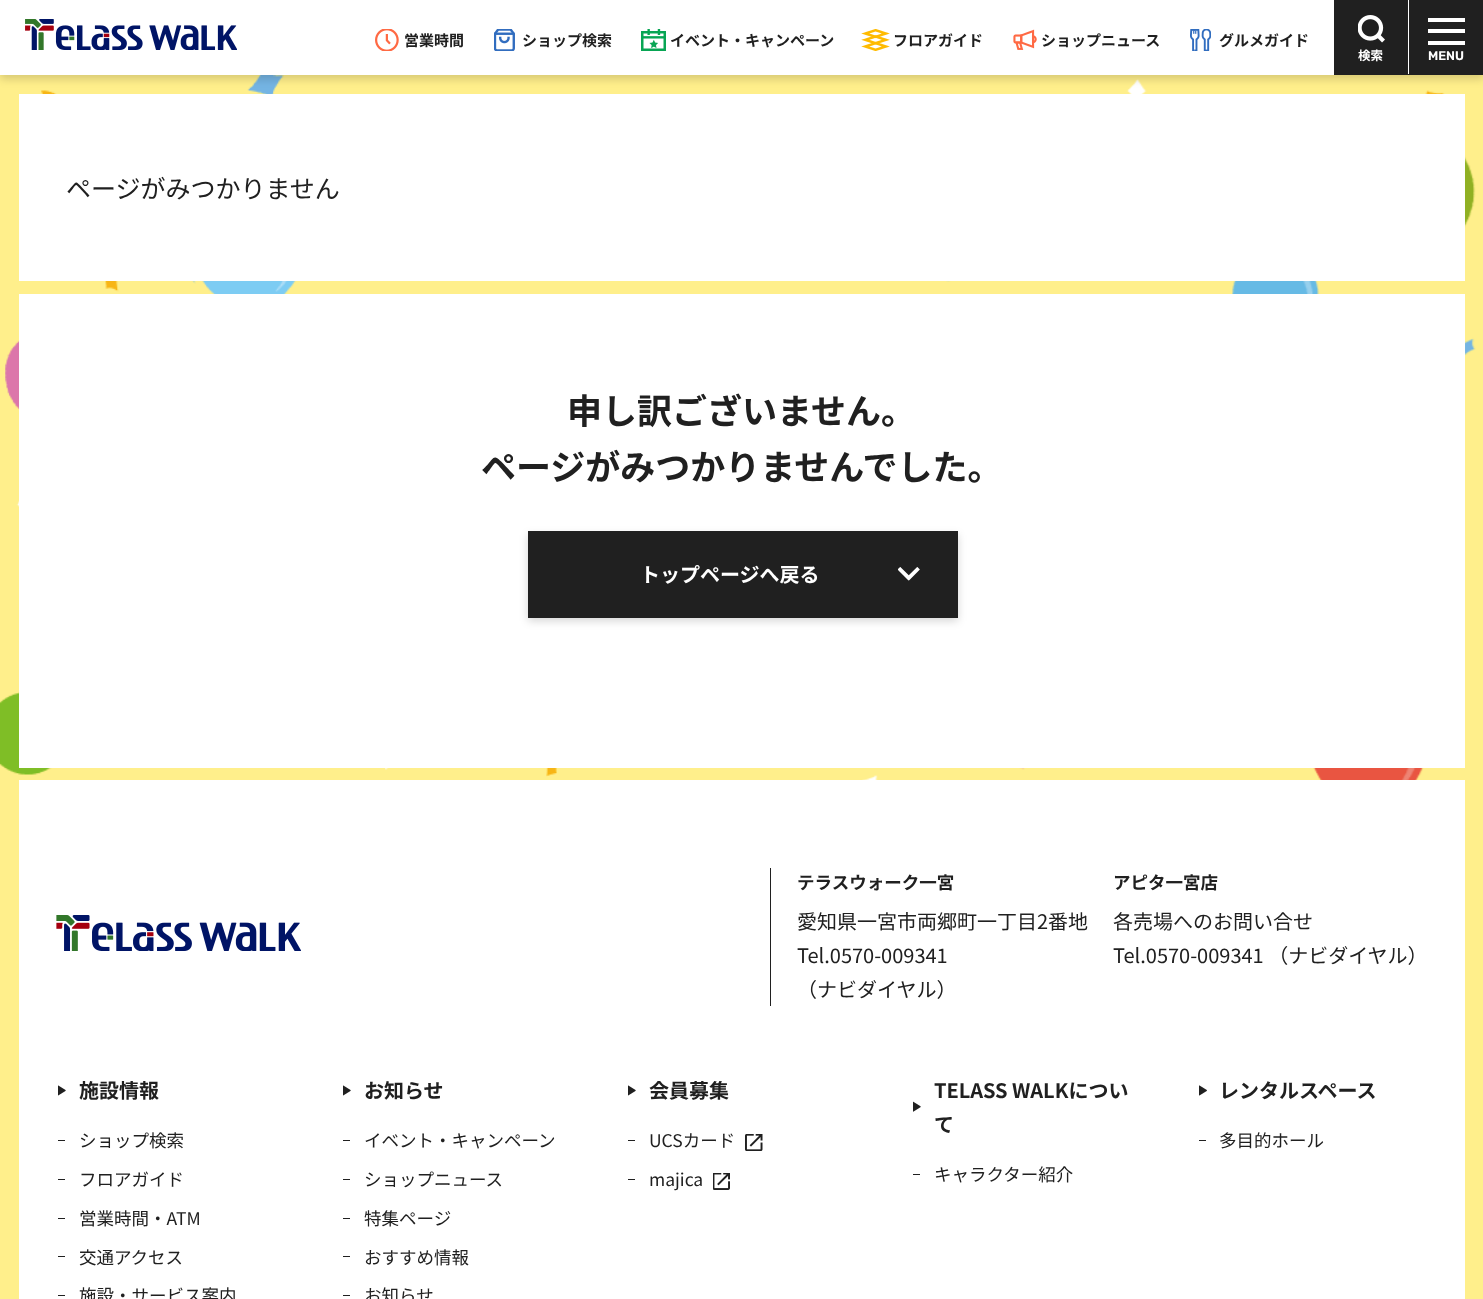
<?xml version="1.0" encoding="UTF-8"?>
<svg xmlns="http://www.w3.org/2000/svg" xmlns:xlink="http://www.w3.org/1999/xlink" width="1483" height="1299">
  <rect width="100%" height="100%" fill="#ffef8b" />
  <image x="0" y="75" width="557" height="702" xlink:href="image9.png" />
  <image x="862" y="79" width="614" height="701" xlink:href="image10.png" />
  <rect y="4" width="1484" height="75" fill="#000000" fill-opacity="0.16" filter="blur(4px)" />
  <rect width="1334" height="75" fill="#ffffff" />
  <image x="25" y="19" width="212" height="31" xlink:href="image1.png" />
  <image x="375" y="29" width="24" height="22" xlink:href="image2.png" />
  <image x="494" y="29" width="21" height="22" xlink:href="image3.png" />
  <image x="641" y="29" width="25" height="22" xlink:href="image4.png" />
  <image x="861" y="29" width="29" height="22" xlink:href="image5.png" />
  <image x="1013" y="29" width="24" height="21" xlink:href="image6.png" />
  <image x="1190" y="29" width="21" height="22" xlink:href="image7.png" />
  <rect x="1334" width="74" height="74" fill="#202020" />
  <rect x="1408" width="1" height="75" fill="#ffffff" />
  <rect x="1334" y="74" width="75" height="1" fill="#202020" />
  <image x="1358" y="15" width="27" height="28" xlink:href="image8.png" />
  <rect x="1409" width="74" height="75" fill="#202020" />
  <rect x="1428" y="18" width="37" height="4" fill="#ffffff" />
  <rect x="1428" y="29" width="37" height="4" fill="#ffffff" />
  <rect x="1428" y="41" width="37" height="4" fill="#ffffff" />
  <rect x="19" y="94" width="1446" height="187" fill="#ffffff" />
  <rect x="19" y="294" width="1446" height="474" fill="#ffffff" />
  <rect x="528" y="535" width="430" height="86" fill="#000000" fill-opacity="0.16" filter="blur(4px)" />
  <rect x="528" y="531" width="430" height="87" fill="#202020" />
  <image x="898" y="567" width="22" height="14" xlink:href="image11.png" />
  <rect x="19" y="780" width="1446" height="519" fill="#ffffff" />
  <image x="56" y="915" width="245" height="36" xlink:href="image12.png" />
  <rect x="770" y="868" width="1" height="138" fill="#202020" />
  <image x="58" y="1085" width="8" height="11" xlink:href="image13.png" />
  <rect x="58" y="1140" width="7" height="1" fill="#202020" />
  <rect x="58" y="1179" width="7" height="1" fill="#202020" />
  <rect x="58" y="1218" width="7" height="1" fill="#202020" />
  <rect x="58" y="1256" width="7" height="1" fill="#202020" />
  <rect x="58" y="1295" width="7" height="1" fill="#202020" />
  <image x="343" y="1085" width="8" height="11" xlink:href="image13.png" />
  <rect x="343" y="1140" width="7" height="1" fill="#202020" />
  <rect x="343" y="1179" width="7" height="1" fill="#202020" />
  <rect x="343" y="1218" width="7" height="1" fill="#202020" />
  <rect x="343" y="1256" width="7" height="1" fill="#202020" />
  <rect x="343" y="1295" width="7" height="1" fill="#202020" />
  <image x="628" y="1085" width="8" height="11" xlink:href="image13.png" />
  <rect x="628" y="1140" width="7" height="1" fill="#202020" />
  <image x="745" y="1134" width="18" height="17" xlink:href="image14.png" />
  <rect x="628" y="1179" width="7" height="1" fill="#202020" />
  <image x="713" y="1173" width="17" height="17" xlink:href="image15.png" />
  <image x="913" y="1101" width="8" height="11" xlink:href="image16.png" />
  <rect x="913" y="1174" width="7" height="1" fill="#202020" />
  <image x="1199" y="1085" width="8" height="11" xlink:href="image17.png" />
  <rect x="1199" y="1140" width="7" height="1" fill="#202020" />
  <text x="404" y="46" style="font-family: Noto Sans JP; font-size: 15px; font-weight: bold; fill: #202020">営業時間</text>
  <text x="522" y="46" style="font-family: Noto Sans JP; font-size: 15px; font-weight: bold; fill: #202020">ショップ検索</text>
  <text x="670" y="46" style="font-family: Noto Sans JP; font-size: 15px; font-weight: bold; fill: #202020">イベント・キャンペーン</text>
  <text x="893" y="46" style="font-family: Noto Sans JP; font-size: 15px; font-weight: bold; fill: #202020">フロアガイド</text>
  <text x="1041" y="46" style="font-family: Noto Sans JP; font-size: 15px; font-weight: bold; fill: #202020">ショップニュース</text>
  <text x="1219" y="46" style="font-family: Noto Sans JP; font-size: 15px; font-weight: bold; fill: #202020">グルメガイド</text>
  <text x="1358" y="60" style="font-family: Noto Sans JP; font-size: 12.5px; font-weight: bold; fill: #ffffff">検索</text>
  <text x="1428" y="60" style="font-family: Rubik; font-size: 12.5px; font-weight: 600; fill: #ffffff">MENU</text>
  <text x="66" y="198" style="font-family: Noto Sans JP; font-size: 25px; fill: #202020">ページがみつかりません</text>
  <text x="567" y="424" style="font-family: Noto Sans JP; font-size: 35px; font-weight: bold; fill: #202020">申し訳ございません。</text>
  <text x="481" y="480" style="font-family: Noto Sans JP; font-size: 35px; font-weight: bold; fill: #202020">ページがみつかりませんでした。</text>
  <text x="640" y="582" style="font-family: Noto Sans JP; font-size: 20px; font-weight: bold; fill: #ffffff">トップページへ戻る</text>
  <text x="797" y="889" style="font-family: Noto Sans JP; font-size: 17.5px; font-weight: bold; fill: #202020">テラスウォーク一宮</text>
  <text x="797" y="929" style="font-family: Noto Sans JP; font-size: 20px; fill: #202020">愛知県一宮市両郷町一丁目2番地</text>
  <text x="797" y="963" style="font-family: Noto Sans JP; font-size: 20px; fill: #202020">Tel.0570-009341</text>
  <text x="797" y="997" style="font-family: Noto Sans JP; font-size: 20px; fill: #202020">（ナビダイヤル）</text>
  <text x="1113" y="889" style="font-family: Noto Sans JP; font-size: 17.5px; font-weight: bold; fill: #202020">アピタ一宮店</text>
  <text x="1113" y="929" style="font-family: Noto Sans JP; font-size: 20px; fill: #202020">各売場へのお問い合せ</text>
  <text x="1113" y="963" style="font-family: Noto Sans JP; font-size: 20px; fill: #202020">Tel.0570-009341 （ナビダイヤル）</text>
  <text x="79" y="1098" style="font-family: Noto Sans JP; font-size: 20px; font-weight: bold; fill: #202020">施設情報</text>
  <text x="79" y="1147" style="font-family: Noto Sans JP; font-size: 17.5px; fill: #202020">ショップ検索</text>
  <text x="79" y="1186" style="font-family: Noto Sans JP; font-size: 17.5px; fill: #202020">フロアガイド</text>
  <text x="79" y="1225" style="font-family: Noto Sans JP; font-size: 17.5px; fill: #202020">営業時間・ATM</text>
  <text x="79" y="1264" style="font-family: Noto Sans JP; font-size: 17.5px; fill: #202020">交通アクセス</text>
  <text x="79" y="1302" style="font-family: Noto Sans JP; font-size: 17.5px; fill: #202020">施設・サービス案内</text>
  <text x="364" y="1098" style="font-family: Noto Sans JP; font-size: 20px; font-weight: bold; fill: #202020">お知らせ</text>
  <text x="364" y="1147" style="font-family: Noto Sans JP; font-size: 17.5px; fill: #202020">イベント・キャンペーン</text>
  <text x="364" y="1186" style="font-family: Noto Sans JP; font-size: 17.5px; fill: #202020">ショップニュース</text>
  <text x="364" y="1225" style="font-family: Noto Sans JP; font-size: 17.5px; fill: #202020">特集ページ</text>
  <text x="364" y="1264" style="font-family: Noto Sans JP; font-size: 17.5px; fill: #202020">おすすめ情報</text>
  <text x="364" y="1302" style="font-family: Noto Sans JP; font-size: 17.5px; fill: #202020">お知らせ</text>
  <text x="649" y="1098" style="font-family: Noto Sans JP; font-size: 20px; font-weight: bold; fill: #202020">会員募集</text>
  <text x="649" y="1147" style="font-family: Noto Sans JP; font-size: 17.5px; fill: #202020">UCSカード</text>
  <text x="649" y="1186" style="font-family: Noto Sans JP; font-size: 17.5px; fill: #202020">majica</text>
  <text x="934" y="1098" style="font-family: Noto Sans JP; font-size: 20px; font-weight: bold; fill: #202020">TELASS WALKについ</text>
  <text x="934" y="1132" style="font-family: Noto Sans JP; font-size: 20px; font-weight: bold; fill: #202020">て</text>
  <text x="934" y="1181" style="font-family: Noto Sans JP; font-size: 17.5px; fill: #202020">キャラクター紹介</text>
  <text x="1219" y="1098" style="font-family: Noto Sans JP; font-size: 20px; font-weight: bold; fill: #202020">レンタルスペース</text>
  <text x="1219" y="1147" style="font-family: Noto Sans JP; font-size: 17.5px; fill: #202020">多目的ホール</text>
</svg>
